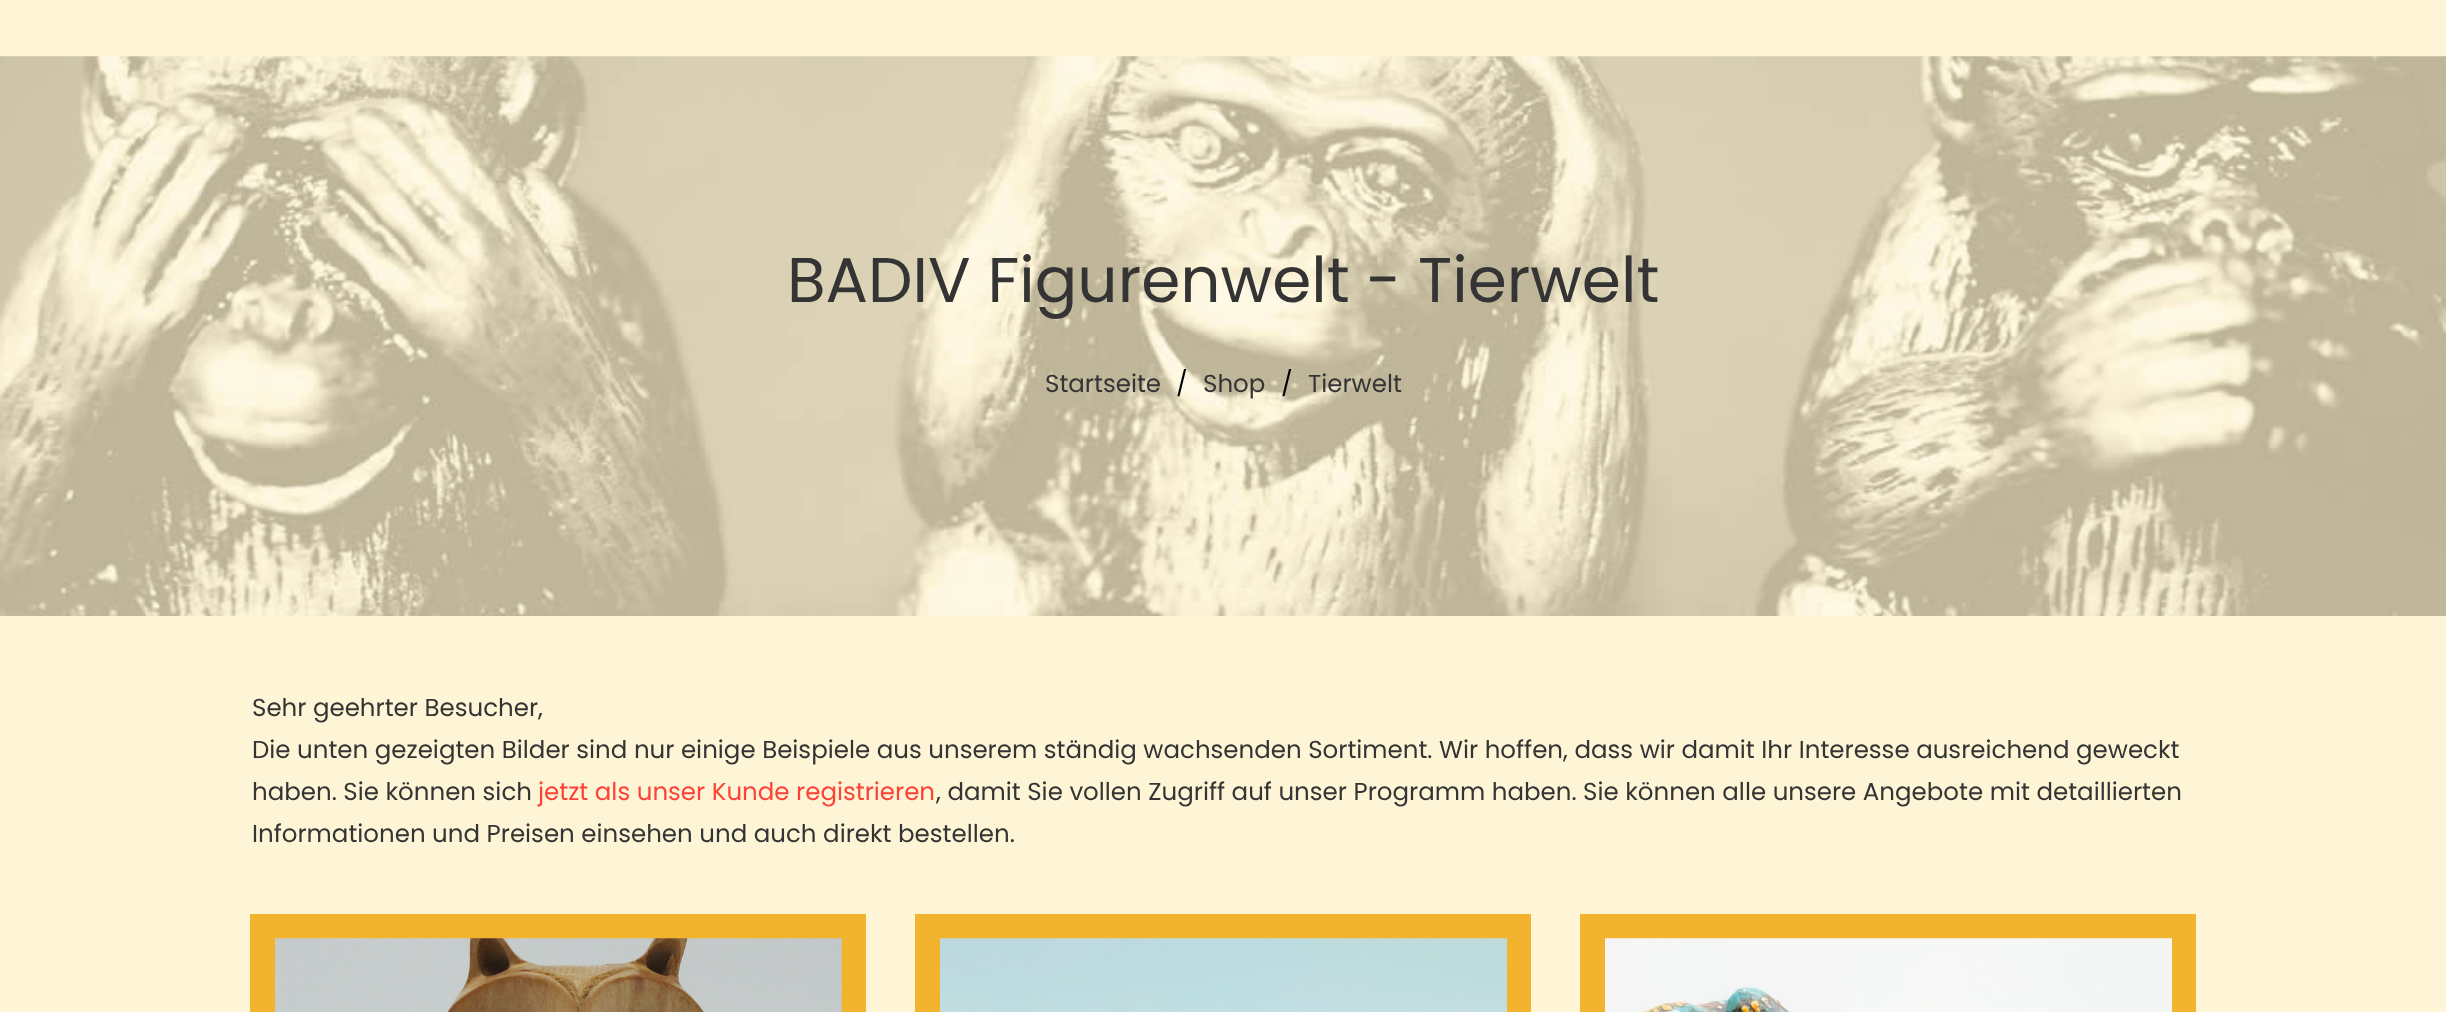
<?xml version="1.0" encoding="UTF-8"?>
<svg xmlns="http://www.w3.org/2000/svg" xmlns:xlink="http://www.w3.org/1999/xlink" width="2446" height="1012">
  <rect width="100%" height="100%" fill="#fdf5d6" />
  <image x="0" y="56" width="2446" height="560" xlink:href="image1.png" />
  <rect x="250" y="914" width="616" height="98" fill="#f2b32e" />
  <image x="275" y="938" width="567" height="74" xlink:href="image2.png" />
  <rect x="915" y="914" width="616" height="98" fill="#f2b32e" />
  <image x="940" y="938" width="567" height="74" xlink:href="image3.png" />
  <rect x="1580" y="914" width="616" height="98" fill="#f2b32e" />
  <image x="1605" y="938" width="567" height="74" xlink:href="image4.png" />
  <text x="787" y="302" style="font-family: Poppins; font-size: 63px; fill: #343434">BADIV Figurenwelt - Tierwelt</text>
  <text x="1045" y="392" style="font-family: Poppins; font-size: 24.5px; fill: #343434">Startseite</text>
  <text x="1176" y="392" style="font-family: Poppins; font-size: 24.5px; fill: #000000">/</text>
  <text x="1203" y="392" style="font-family: Poppins; font-size: 24.5px; fill: #343434">Shop</text>
  <text x="1281" y="392" style="font-family: Poppins; font-size: 24.5px; fill: #000000">/</text>
  <text x="1308" y="392" style="font-family: Poppins; font-size: 24.5px; fill: #343434">Tierwelt</text>
  <text x="252" y="716" style="font-family: Poppins; font-size: 24.5px; fill: #343434">Sehr geehrter Besucher,</text>
  <text x="252" y="758" style="font-family: Poppins; font-size: 24.5px; fill: #343434">Die unten gezeigten Bilder sind nur einige Beispiele aus unserem ständig wachsenden Sortiment. Wir hoffen, dass wir damit Ihr Interesse ausreichend geweckt</text>
  <text x="252" y="800" style="font-family: Poppins; font-size: 24.5px; fill: #343434">haben. Sie können sich</text>
  <text x="538" y="800" style="font-family: Poppins; font-size: 24.5px; fill: #ff4136">jetzt als unser Kunde registrieren</text>
  <text x="936" y="800" style="font-family: Poppins; font-size: 24.5px; fill: #343434">, damit Sie vollen Zugriff auf unser Programm haben. Sie können alle unsere Angebote mit detaillierten</text>
  <text x="252" y="842" style="font-family: Poppins; font-size: 24.5px; fill: #343434">Informationen und Preisen einsehen und auch direkt bestellen.</text>
</svg>
